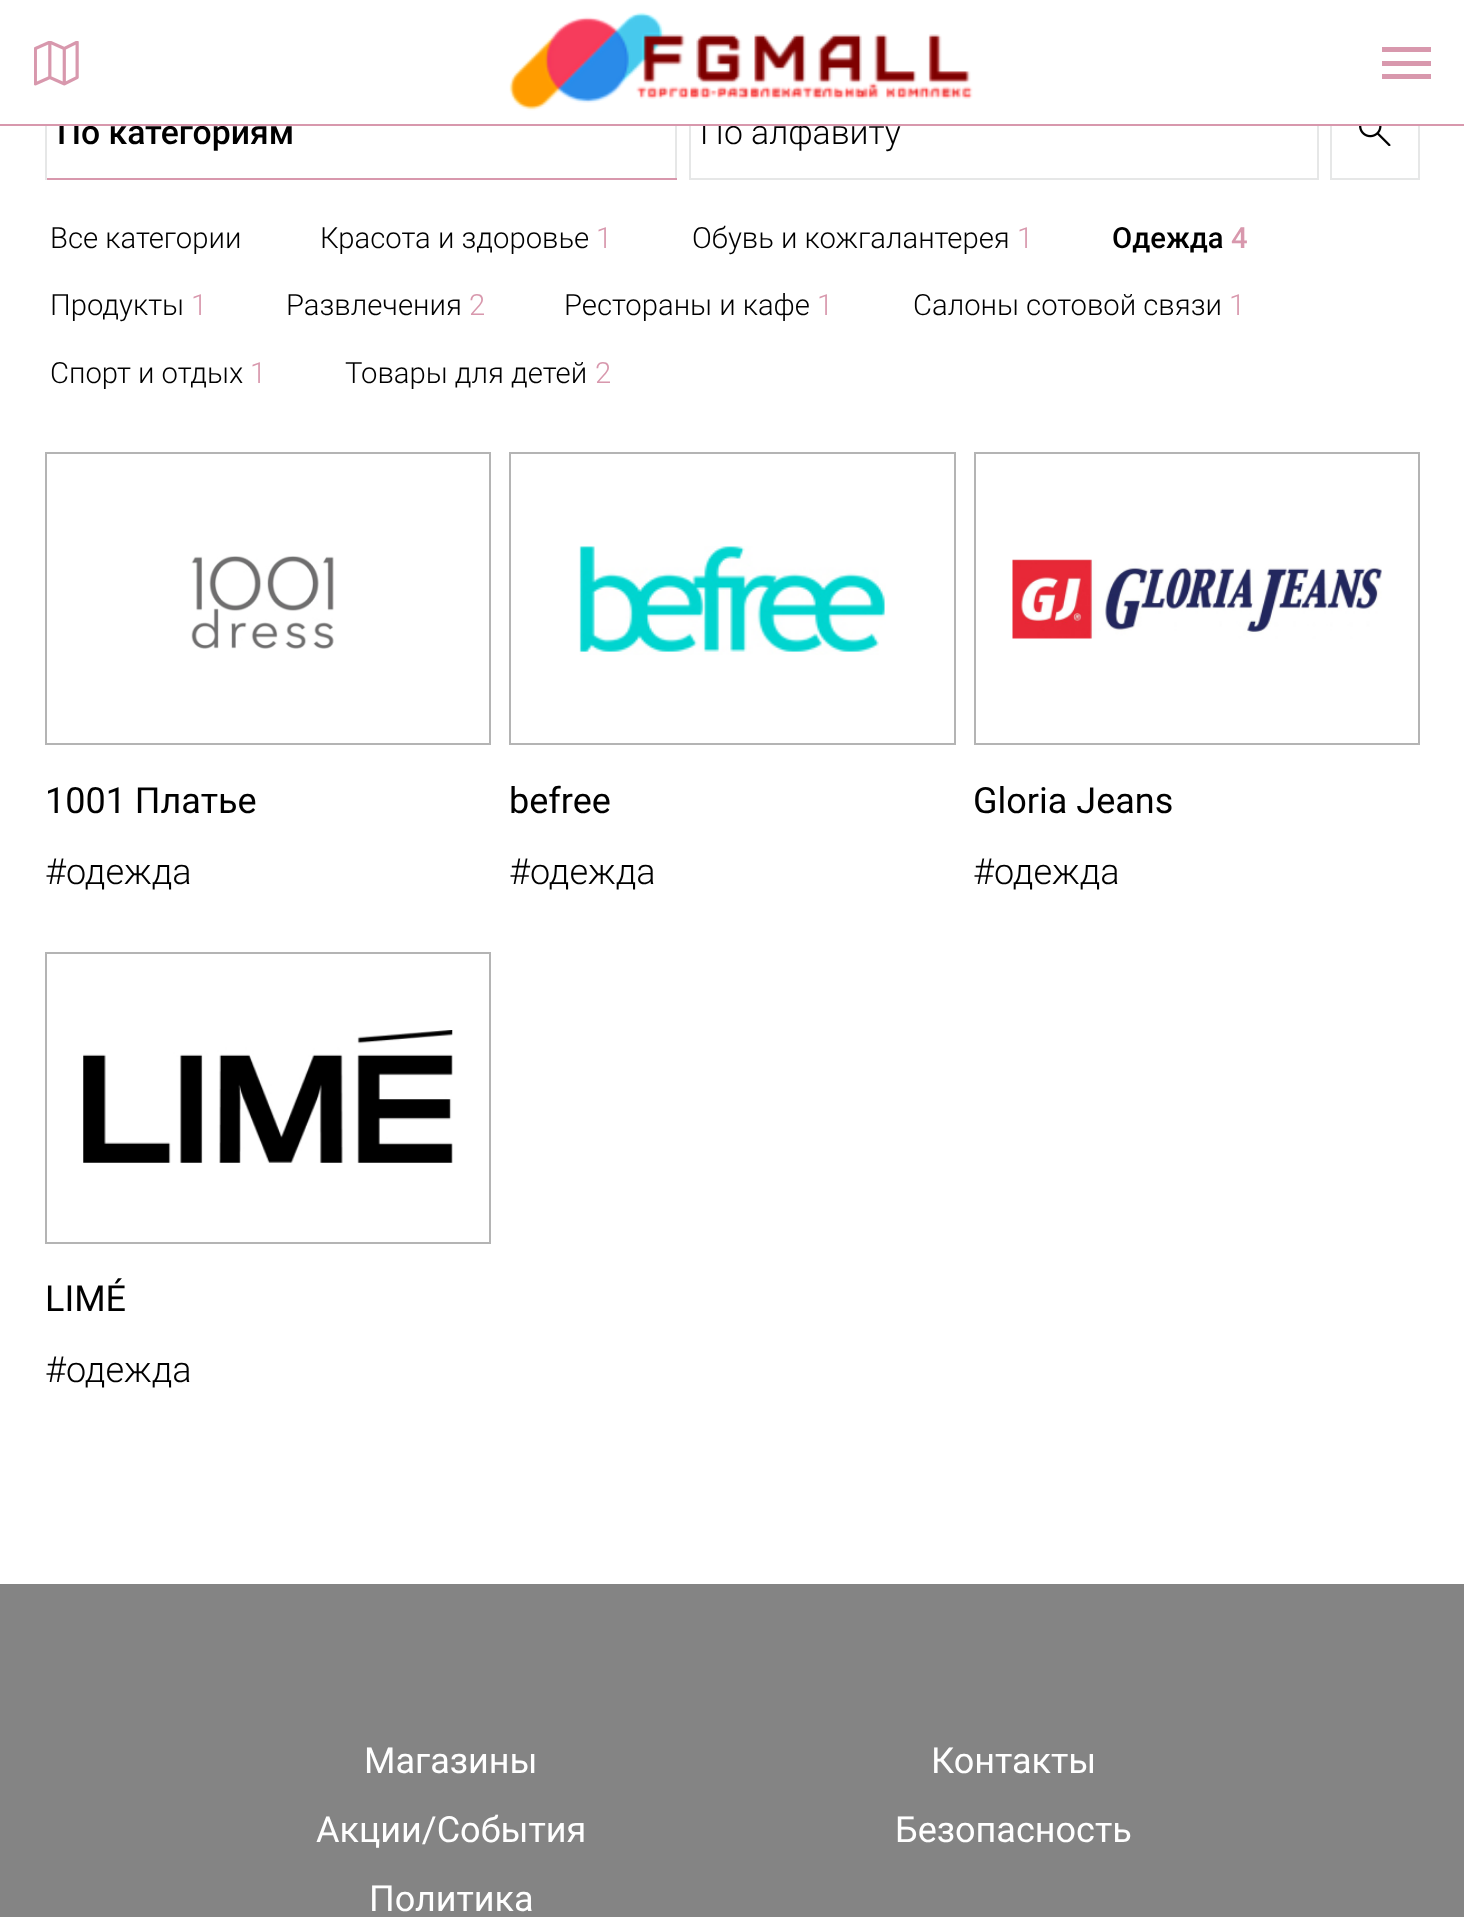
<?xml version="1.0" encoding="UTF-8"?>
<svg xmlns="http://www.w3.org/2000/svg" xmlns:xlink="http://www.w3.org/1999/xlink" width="1464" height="1917">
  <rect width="100%" height="100%" fill="#ffffff" />
  <image x="34" y="41" width="45" height="45" xlink:href="image1.png" />
  <rect x="1382" y="61" width="49" height="5" fill="#d898ad" />
  <rect x="1382" y="47" width="49" height="5" fill="#d898ad" />
  <rect x="1382" y="74" width="49" height="5" fill="#d898ad" />
  <rect x="675" y="126" width="2" height="54" fill="#e6e7e7" />
  <rect x="45" y="178" width="632" height="2" fill="#d898ad" />
  <rect x="45" y="126" width="2" height="54" fill="#e6e7e7" />
  <rect x="690" y="91" width="628" height="88" fill="none" stroke="#e6e7e7" stroke-width="2" />
  <rect x="1331" y="91" width="88" height="88" fill="none" stroke="#e6e7e7" stroke-width="2" />
  <image x="1359" y="126" width="32" height="20" xlink:href="image3.png" />
  <rect x="46" y="453" width="444" height="291" fill="none" stroke="#b4b4b4" stroke-width="2" />
  <image x="191" y="556" width="143" height="93" xlink:href="image4.png" />
  <rect x="510" y="453" width="445" height="291" fill="none" stroke="#b4b4b4" stroke-width="2" />
  <image x="579" y="546" width="307" height="109" xlink:href="image5.png" />
  <rect x="975" y="453" width="444" height="291" fill="none" stroke="#b4b4b4" stroke-width="2" />
  <image x="1012" y="559" width="370" height="80" xlink:href="image6.png" />
  <rect x="46" y="953" width="444" height="290" fill="none" stroke="#b4b4b4" stroke-width="2" />
  <image x="83" y="1030" width="370" height="133" xlink:href="image7.png" />
  <rect y="1584" width="1464" height="333" fill="#848484" />
  <text x="57" y="144" style="font-family: Roboto; font-size: 33.75px; font-weight: 500; fill: #000000">По категориям</text>
  <text x="700" y="144" style="font-family: Roboto; font-size: 33.75px; font-weight: 300; fill: #000000">По алфавиту</text>
  <rect x="59" y="90" width="1361" height="34" fill="#ffffff" />
  <image x="509" y="12" width="464" height="99" xlink:href="image2.png" />
  <rect y="124" width="1464" height="2" fill="#d898ad" />
  <text x="50" y="248" style="font-family: Roboto; font-size: 29.25px; font-weight: 300; fill: #000000">Все категории</text>
  <text x="320" y="248" style="font-family: Roboto; font-size: 29.25px; font-weight: 300; fill: #000000">Красота и здоровье</text>
  <text x="596" y="248" style="font-family: Roboto; font-size: 29.25px; font-weight: 300; fill: #d898ad">1</text>
  <text x="692" y="248" style="font-family: Roboto; font-size: 29.25px; font-weight: 300; fill: #000000">Обувь и кожгалантерея</text>
  <text x="1017" y="248" style="font-family: Roboto; font-size: 29.25px; font-weight: 300; fill: #d898ad">1</text>
  <text x="1112" y="248" style="font-family: Roboto; font-size: 29.25px; font-weight: 500; fill: #000000">Одежда</text>
  <text x="1231" y="248" style="font-family: Roboto; font-size: 29.25px; font-weight: 500; fill: #d898ad">4</text>
  <text x="50" y="315" style="font-family: Roboto; font-size: 29.25px; font-weight: 300; fill: #000000">Продукты</text>
  <text x="191" y="315" style="font-family: Roboto; font-size: 29.25px; font-weight: 300; fill: #d898ad">1</text>
  <text x="286" y="315" style="font-family: Roboto; font-size: 29.25px; font-weight: 300; fill: #000000">Развлечения</text>
  <text x="469" y="315" style="font-family: Roboto; font-size: 29.25px; font-weight: 300; fill: #d898ad">2</text>
  <text x="564" y="315" style="font-family: Roboto; font-size: 29.25px; font-weight: 300; fill: #000000">Рестораны и кафе</text>
  <text x="817" y="315" style="font-family: Roboto; font-size: 29.25px; font-weight: 300; fill: #d898ad">1</text>
  <text x="913" y="315" style="font-family: Roboto; font-size: 29.25px; font-weight: 300; fill: #000000">Салоны сотовой связи</text>
  <text x="1229" y="315" style="font-family: Roboto; font-size: 29.25px; font-weight: 300; fill: #d898ad">1</text>
  <text x="50" y="383" style="font-family: Roboto; font-size: 29.25px; font-weight: 300; fill: #000000">Спорт и отдых</text>
  <text x="250" y="383" style="font-family: Roboto; font-size: 29.25px; font-weight: 300; fill: #d898ad">1</text>
  <text x="345" y="383" style="font-family: Roboto; font-size: 29.25px; font-weight: 300; fill: #000000">Товары для детей</text>
  <text x="595" y="383" style="font-family: Roboto; font-size: 29.25px; font-weight: 300; fill: #d898ad">2</text>
  <text x="45" y="813" style="font-family: Roboto; font-size: 36px; fill: #000000">1001 Платье</text>
  <text x="45" y="884" style="font-family: Roboto; font-size: 36px; font-weight: 300; fill: #000000">#одежда</text>
  <text x="509" y="813" style="font-family: Roboto; font-size: 36px; fill: #000000">befree</text>
  <text x="509" y="884" style="font-family: Roboto; font-size: 36px; font-weight: 300; fill: #000000">#одежда</text>
  <text x="973" y="813" style="font-family: Roboto; font-size: 36px; fill: #000000">Gloria Jeans</text>
  <text x="973" y="884" style="font-family: Roboto; font-size: 36px; font-weight: 300; fill: #000000">#одежда</text>
  <text x="45" y="1311" style="font-family: Roboto; font-size: 36px; fill: #000000">LIMÉ</text>
  <text x="45" y="1382" style="font-family: Roboto; font-size: 36px; font-weight: 300; fill: #000000">#одежда</text>
  <text x="364" y="1773" style="font-family: Roboto; font-size: 36px; fill: #ffffff">Магазины</text>
  <text x="931" y="1773" style="font-family: Roboto; font-size: 36px; fill: #ffffff">Контакты</text>
  <text x="316" y="1842" style="font-family: Roboto; font-size: 36px; fill: #ffffff">Акции/События</text>
  <text x="895" y="1842" style="font-family: Roboto; font-size: 36px; fill: #ffffff">Безопасность</text>
  <text x="369" y="1911" style="font-family: Roboto; font-size: 36px; fill: #ffffff">Политика</text>
</svg>
